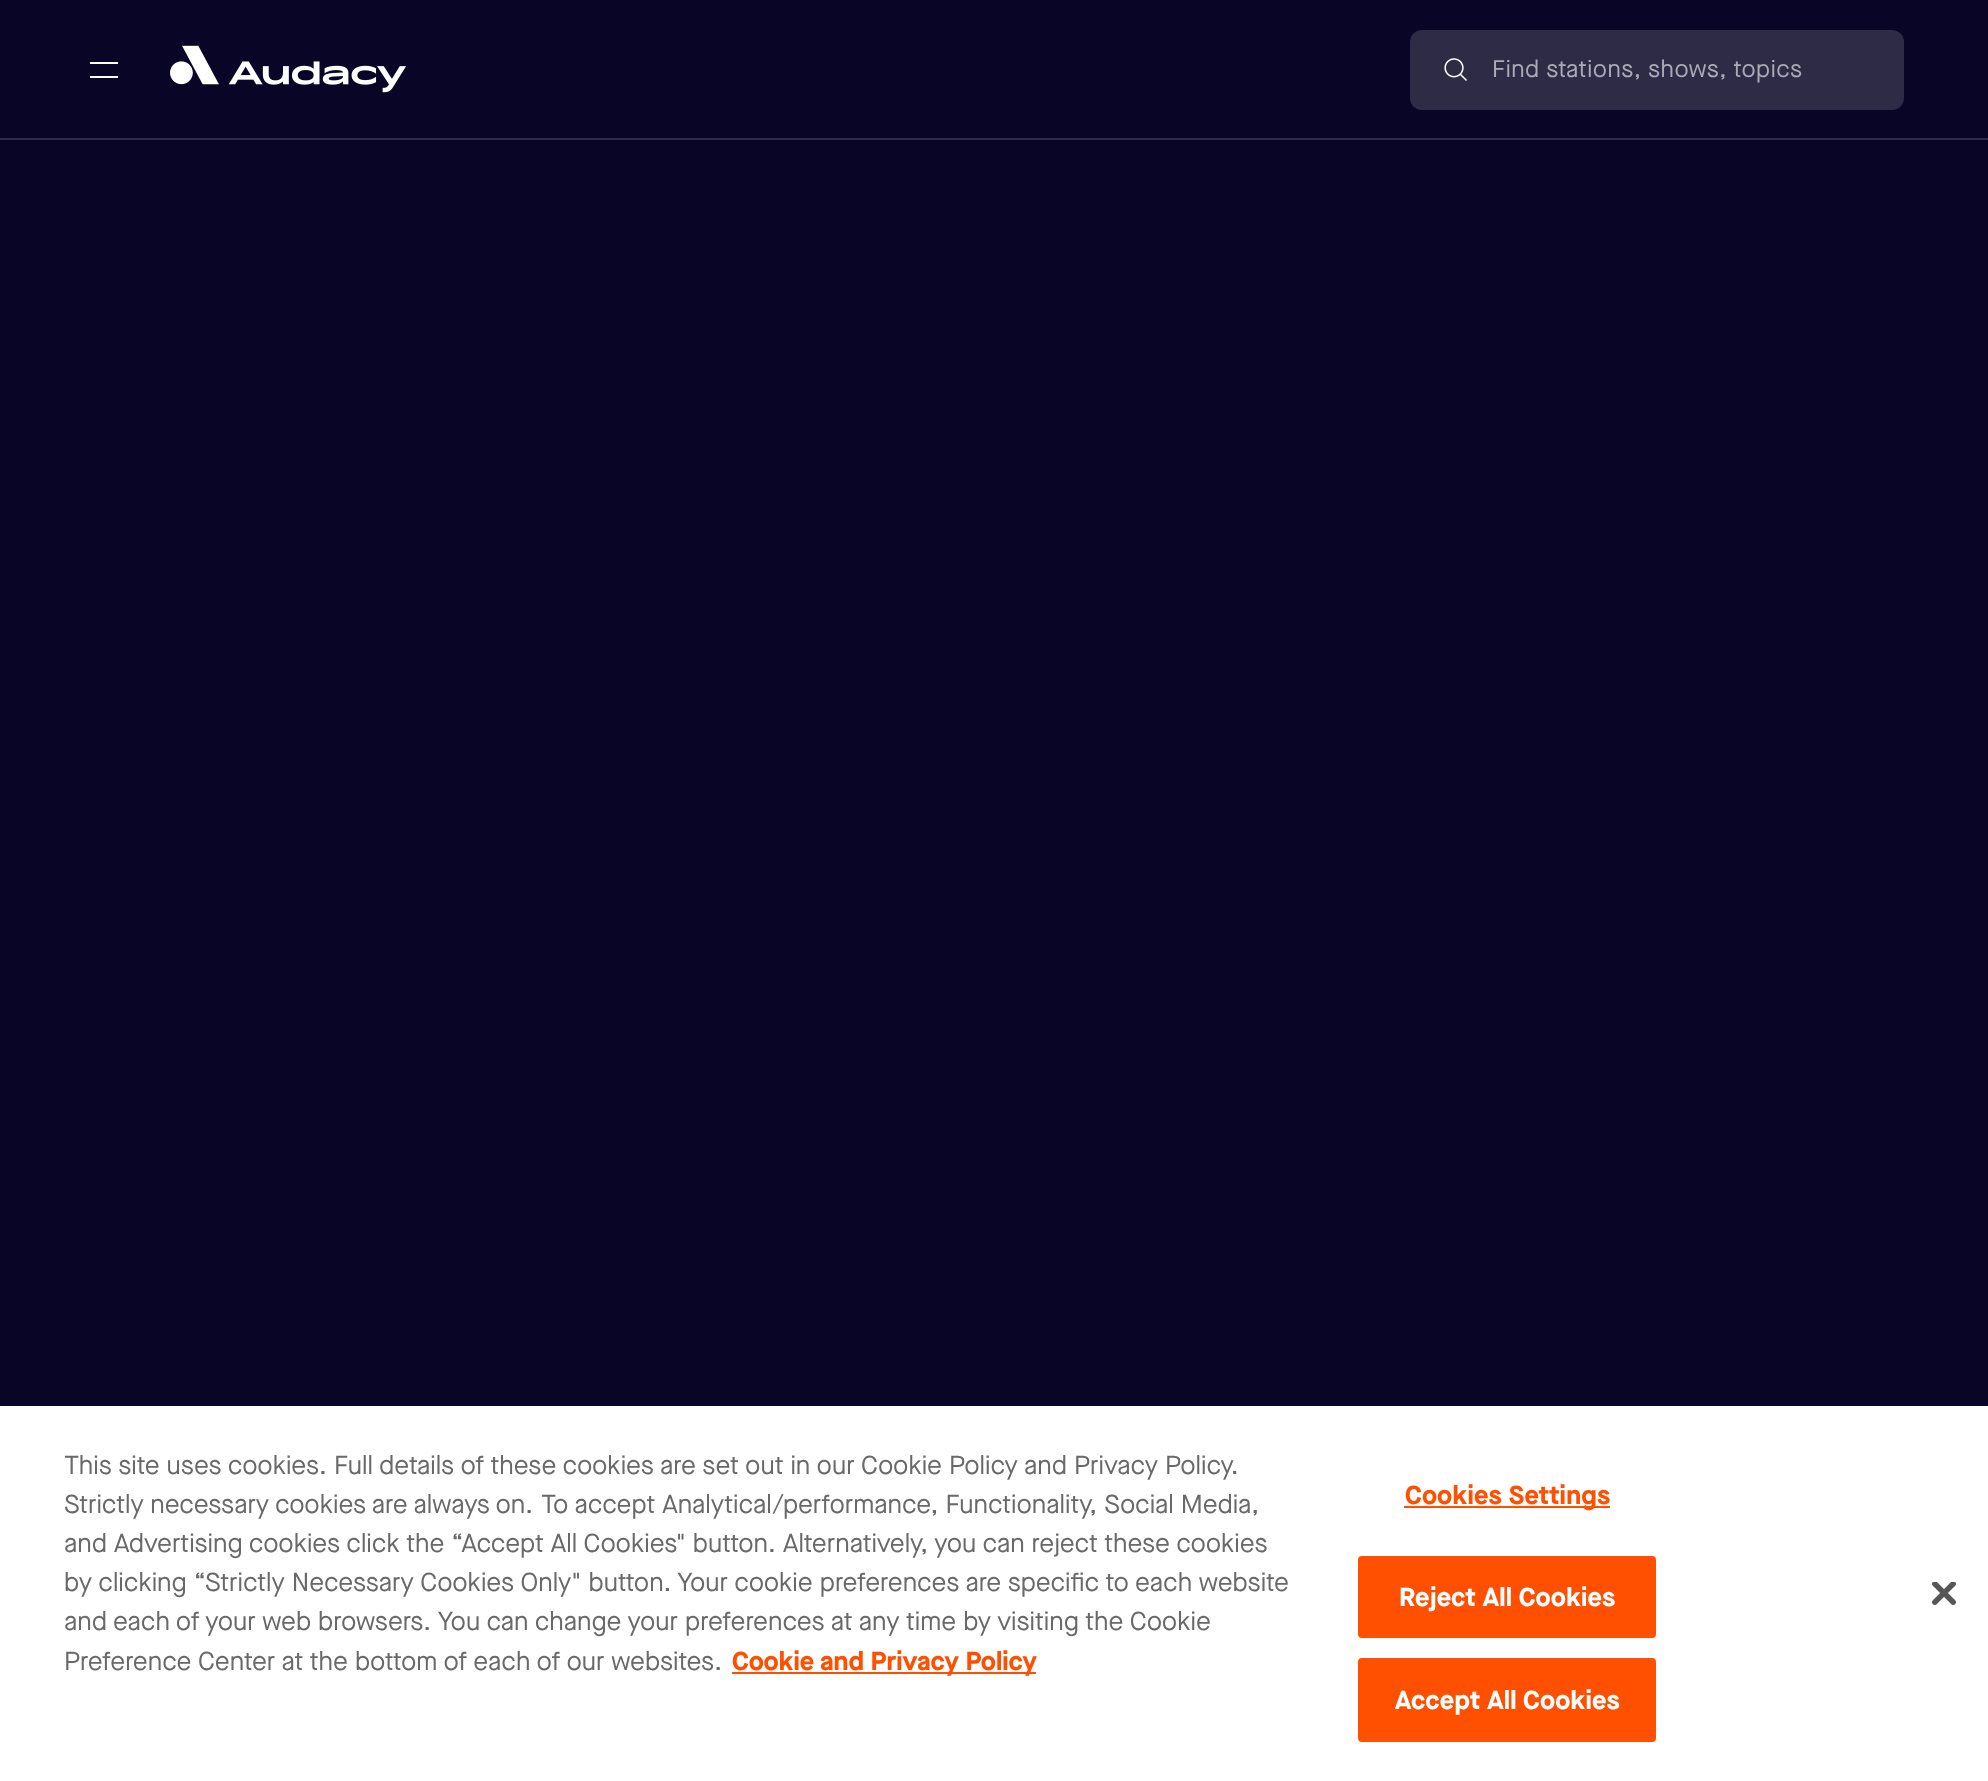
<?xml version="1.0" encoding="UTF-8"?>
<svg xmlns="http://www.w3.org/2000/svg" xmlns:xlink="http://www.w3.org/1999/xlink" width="1988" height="1781">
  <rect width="100%" height="100%" fill="#090527" />
  <rect y="138" width="1988" height="2" fill="#2e2b47" />
  <rect x="90" y="62" width="28" height="2" fill="#ffffff" />
  <rect x="90" y="76" width="28" height="2" fill="#ffffff" />
  <image x="170" y="45" width="236" height="48" xlink:href="image1.png" />
  <rect x="1410" y="30" width="494" height="80" rx="12" fill="#2e2b47" />
  <image x="1444" y="58" width="23" height="23" xlink:href="image2.png" />
  <rect y="1406" width="1988" height="375" fill="#ffffff" />
  <rect x="732" y="1672" width="304" height="2" fill="#fe5000" />
  <rect x="1404" y="1506" width="206" height="2" fill="#fe5000" />
  <rect x="1359" y="1557" width="296" height="80" rx="3" fill="#fe5000" stroke="#fe5000" stroke-width="2" />
  <rect x="1359" y="1659" width="296" height="82" rx="3" fill="#fe5000" stroke="#fe5000" stroke-width="2" />
  <image x="1932" y="1582" width="24" height="23" xlink:href="image3.png" />
  <text x="1492" y="77" style="font-family: Maison Neue; font-size: 24px; letter-spacing: 0.5px; fill: #abaab5">Find stations, shows, topics</text>
  <text x="64" y="1474" style="font-family: Maison Neue; font-size: 26px; fill: #696969">This site uses cookies. Full details of these cookies are set out in our Cookie Policy and Privacy Policy.</text>
  <text x="64" y="1513" word-spacing="-0.5" style="font-family: Maison Neue; font-size: 26px; fill: #696969">Strictly necessary cookies are always on.</text>
  <text x="541" y="1513" style="font-family: Maison Neue; font-size: 26px; fill: #696969">To accept Analytical/performance, Functionality, Social Media,</text>
  <text x="64" y="1552" style="font-family: Maison Neue; font-size: 26px; fill: #696969">and Advertising cookies click the “Accept All Cookies" button.</text>
  <text x="783" y="1552" style="font-family: Maison Neue; font-size: 26px; fill: #696969">Alternatively, you can reject these cookies</text>
  <text x="64" y="1591" style="font-family: Maison Neue; font-size: 26px; fill: #696969">by clicking “Strictly Necessary Cookies Only" button. Your cookie preferences are specific to each website</text>
  <text x="64" y="1630" word-spacing="-0.25" style="font-family: Maison Neue; font-size: 26px; fill: #696969">and each of your web browsers.</text>
  <text x="438" y="1630" style="font-family: Maison Neue; font-size: 26px; fill: #696969">You can change your preferences at any time by visiting the Cookie</text>
  <text x="64" y="1670" style="font-family: Maison Neue; font-size: 26px; fill: #696969">Preference Center at the bottom of each of our websites.</text>
  <text x="732" y="1670" style="font-family: Maison Neue; font-size: 26px; font-weight: bold; fill: #fe5000">Cookie and Privacy Policy</text>
  <text x="1405" y="1504" style="font-family: Maison Neue; font-size: 26px; font-weight: bold; letter-spacing: 0.25px; fill: #fe5000">Cookies Settings</text>
  <text x="1399" y="1606" style="font-family: Maison Neue; font-size: 26px; font-weight: bold; letter-spacing: 0.25px; fill: #ffffff">Reject All Cookies</text>
  <text x="1395" y="1709" style="font-family: Maison Neue; font-size: 26px; font-weight: bold; letter-spacing: 0.25px; fill: #ffffff">Accept All Cookies</text>
</svg>
